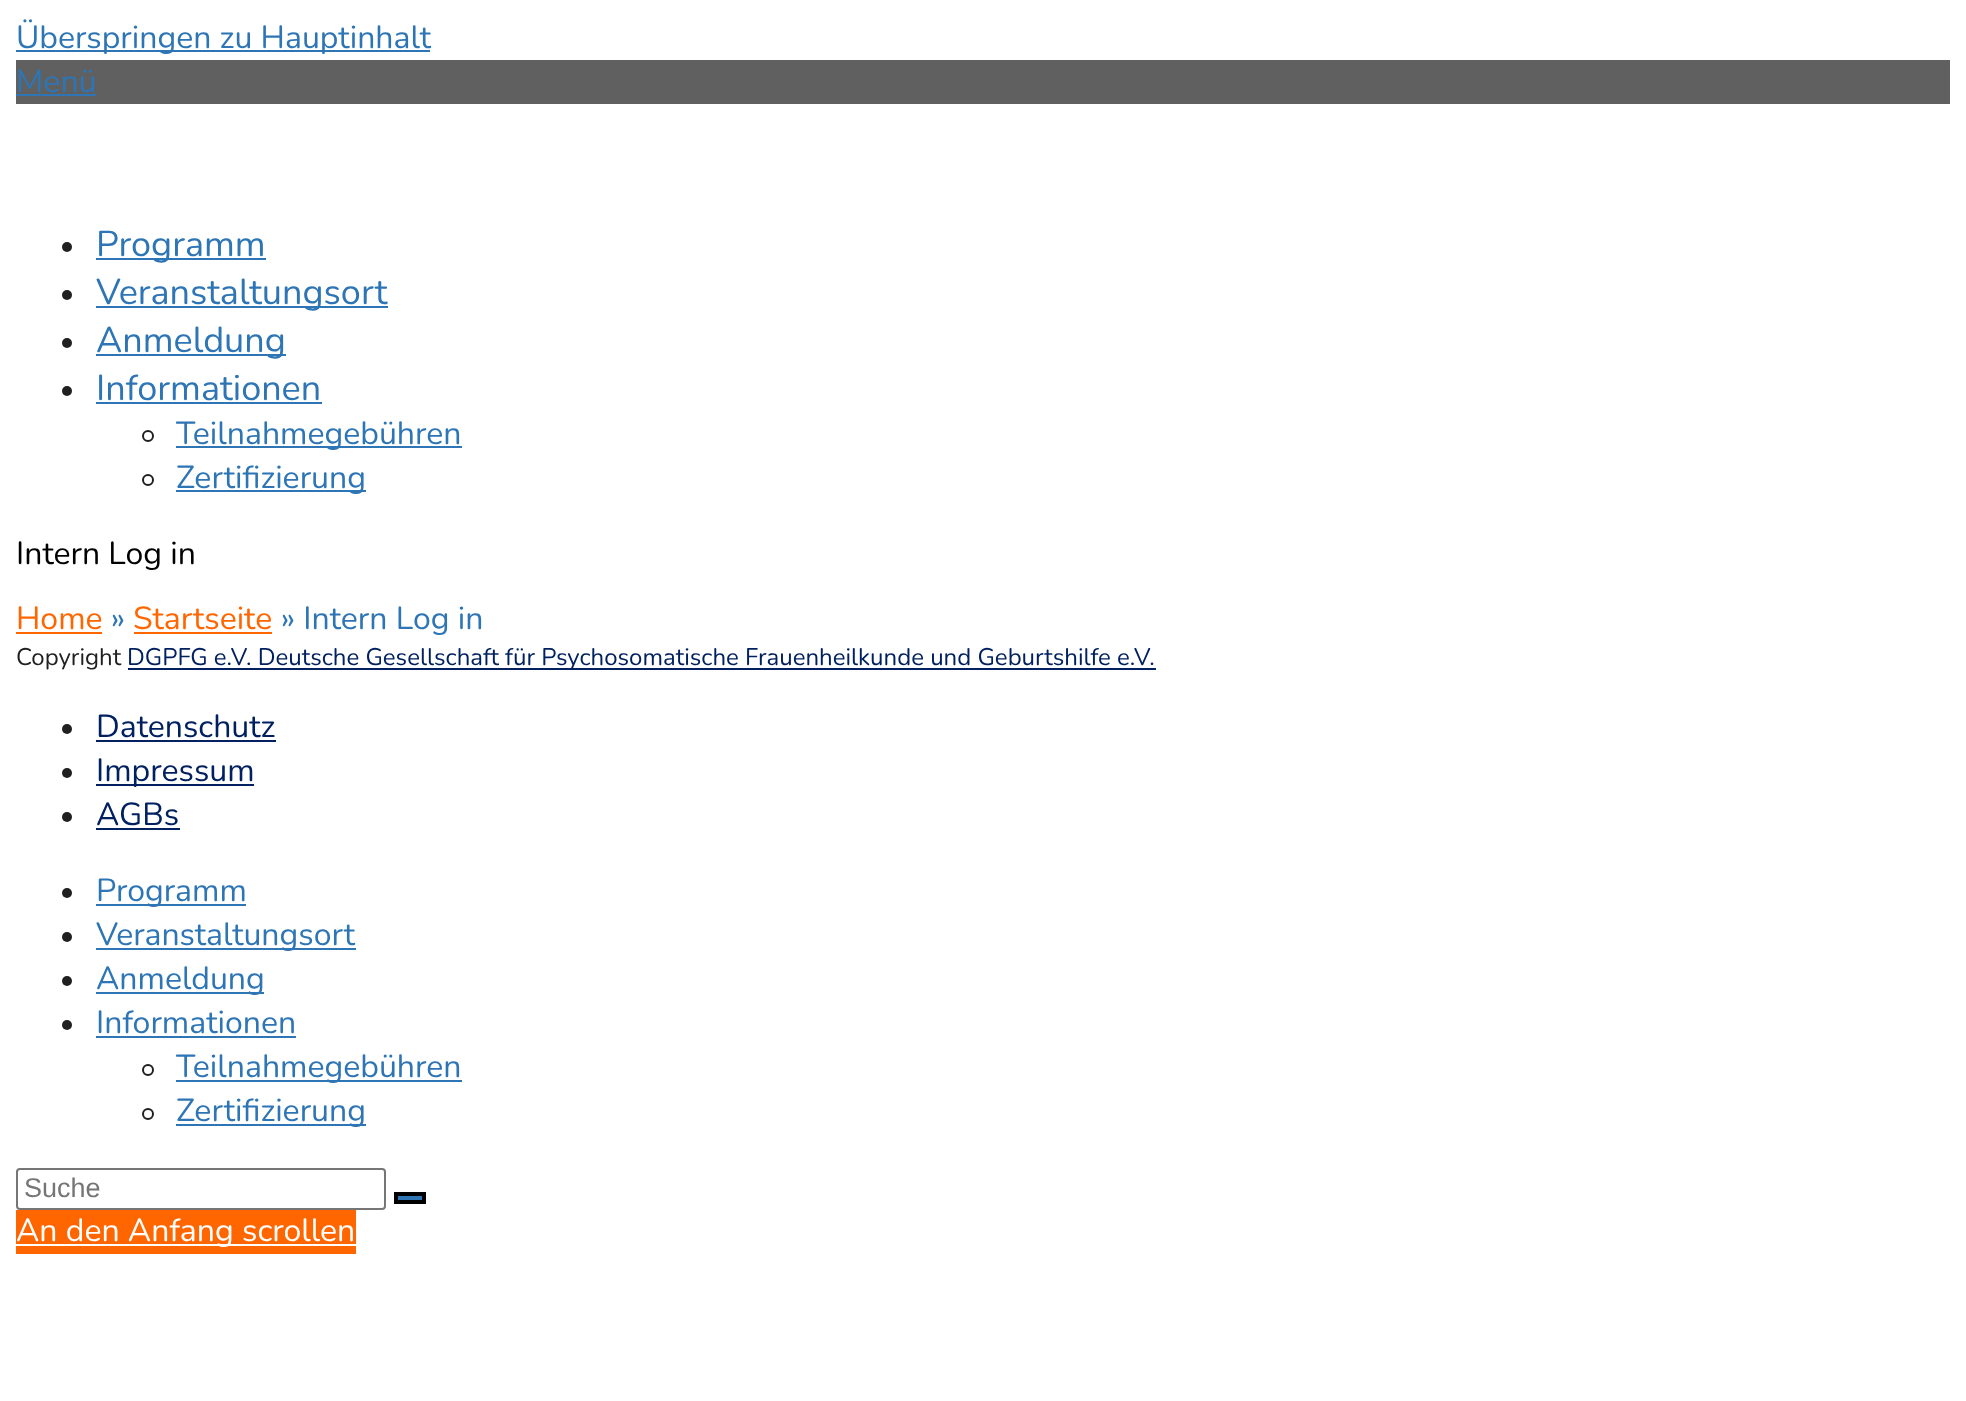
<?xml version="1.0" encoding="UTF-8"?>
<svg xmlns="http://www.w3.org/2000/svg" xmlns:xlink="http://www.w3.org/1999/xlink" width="1966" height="1401">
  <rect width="100%" height="100%" fill="#ffffff" />
  <rect x="16" y="50" width="414" height="2" fill="#2e75b5" />
  <rect x="16" y="60" width="1934" height="44" fill="#606060" />
  <rect x="16" y="94" width="80" height="2" fill="#2e75b5" />
  <circle cx="67" cy="247" r="5" fill="#202020" />
  <rect x="96" y="258" width="170" height="2" fill="#2e75b5" />
  <circle cx="67" cy="295" r="5" fill="#202020" />
  <rect x="96" y="306" width="292" height="2" fill="#2e75b5" />
  <circle cx="67" cy="343" r="5" fill="#202020" />
  <rect x="96" y="354" width="190" height="2" fill="#2e75b5" />
  <circle cx="67" cy="391" r="5" fill="#202020" />
  <rect x="96" y="402" width="226" height="2" fill="#2e75b5" />
  <circle cx="148" cy="436" r="5" fill="none" stroke="#202020" stroke-width="2" />
  <rect x="176" y="446" width="286" height="2" fill="#2e75b5" />
  <circle cx="148" cy="480" r="5" fill="none" stroke="#202020" stroke-width="2" />
  <rect x="176" y="490" width="190" height="2" fill="#2e75b5" />
  <rect x="16" y="632" width="86" height="2" fill="#ff6600" />
  <rect x="134" y="632" width="138" height="2" fill="#ff6600" />
  <rect x="128" y="668" width="1028" height="2" fill="#002060" />
  <circle cx="67" cy="729" r="5" fill="#202020" />
  <rect x="96" y="740" width="180" height="2" fill="#002060" />
  <circle cx="67" cy="773" r="5" fill="#202020" />
  <rect x="96" y="784" width="158" height="2" fill="#002060" />
  <circle cx="67" cy="817" r="5" fill="#202020" />
  <rect x="96" y="828" width="84" height="2" fill="#002060" />
  <circle cx="67" cy="893" r="5" fill="#202020" />
  <rect x="96" y="904" width="150" height="2" fill="#2e75b5" />
  <circle cx="67" cy="937" r="5" fill="#202020" />
  <rect x="96" y="948" width="260" height="2" fill="#2e75b5" />
  <circle cx="67" cy="981" r="5" fill="#202020" />
  <rect x="96" y="992" width="168" height="2" fill="#2e75b5" />
  <circle cx="67" cy="1025" r="5" fill="#202020" />
  <rect x="96" y="1036" width="200" height="2" fill="#2e75b5" />
  <circle cx="148" cy="1070" r="5" fill="none" stroke="#202020" stroke-width="2" />
  <rect x="176" y="1080" width="286" height="2" fill="#2e75b5" />
  <circle cx="148" cy="1114" r="5" fill="none" stroke="#202020" stroke-width="2" />
  <rect x="176" y="1124" width="190" height="2" fill="#2e75b5" />
  <rect x="17" y="1169" width="368" height="40" rx="3" fill="none" stroke="#767676" stroke-width="2" />
  <rect x="396" y="1194" width="28" height="8" fill="#2e75b5" stroke="#000000" stroke-width="4" />
  <rect x="16" y="1210" width="340" height="44" fill="#ff6600" />
  <rect x="16" y="1244" width="340" height="2" fill="#ffffff" />
  <text x="16" y="48" style="font-family: Nunito; font-size: 32px; fill: #2e75b5">Überspringen zu Hauptinhalt</text>
  <text x="16" y="92" style="font-family: Nunito; font-size: 32px; fill: #2e75b5">Menü</text>
  <text x="96" y="256" style="font-family: Nunito; font-size: 36px; fill: #2e75b5">Programm</text>
  <text x="96" y="304" style="font-family: Nunito; font-size: 36px; fill: #2e75b5">Veranstaltungsort</text>
  <text x="96" y="352" style="font-family: Nunito; font-size: 36px; fill: #2e75b5">Anmeldung</text>
  <text x="96" y="400" style="font-family: Nunito; font-size: 36px; fill: #2e75b5">Informationen</text>
  <text x="176" y="444" style="font-family: Nunito; font-size: 32px; fill: #2e75b5">Teilnahmegebühren</text>
  <text x="176" y="488" style="font-family: Nunito; font-size: 32px; fill: #2e75b5">Zertifizierung</text>
  <text x="16" y="564" style="font-family: Nunito; font-size: 32px; fill: #000000">Intern Log in</text>
  <text x="16" y="629" style="font-family: Nunito; font-size: 32px; fill: #ff6600">Home</text>
  <text x="111" y="629" style="font-family: Nunito; font-size: 32px; fill: #2e75b5">»</text>
  <text x="133" y="629" style="font-family: Nunito; font-size: 32px; fill: #ff6600">Startseite</text>
  <text x="281" y="629" style="font-family: Nunito; font-size: 32px; fill: #2e75b5">» Intern Log in</text>
  <text x="16" y="665" style="font-family: Nunito; font-size: 24px; fill: #202020">Copyright</text>
  <text x="127" y="665" style="font-family: Nunito; font-size: 24px; fill: #002060">DGPFG e.V. Deutsche Gesellschaft für Psychosomatische Frauenheilkunde und Geburtshilfe e.V.</text>
  <text x="96" y="737" style="font-family: Nunito; font-size: 32px; fill: #002060">Datenschutz</text>
  <text x="96" y="781" style="font-family: Nunito; font-size: 32px; fill: #002060">Impressum</text>
  <text x="96" y="825" style="font-family: Nunito; font-size: 32px; fill: #002060">AGBs</text>
  <text x="96" y="901" style="font-family: Nunito; font-size: 32px; fill: #2e75b5">Programm</text>
  <text x="96" y="945" style="font-family: Nunito; font-size: 32px; fill: #2e75b5">Veranstaltungsort</text>
  <text x="96" y="989" style="font-family: Nunito; font-size: 32px; fill: #2e75b5">Anmeldung</text>
  <text x="96" y="1033" style="font-family: Nunito; font-size: 32px; fill: #2e75b5">Informationen</text>
  <text x="176" y="1077" style="font-family: Nunito; font-size: 32px; fill: #2e75b5">Teilnahmegebühren</text>
  <text x="176" y="1121" style="font-family: Nunito; font-size: 32px; fill: #2e75b5">Zertifizierung</text>
  <text x="24" y="1197" style="font-family: Liberation Sans; font-size: 27px; fill: #757575">Suche</text>
  <text x="16" y="1241" style="font-family: Nunito; font-size: 32px; fill: #ffffff">An den Anfang scrollen</text>
</svg>
